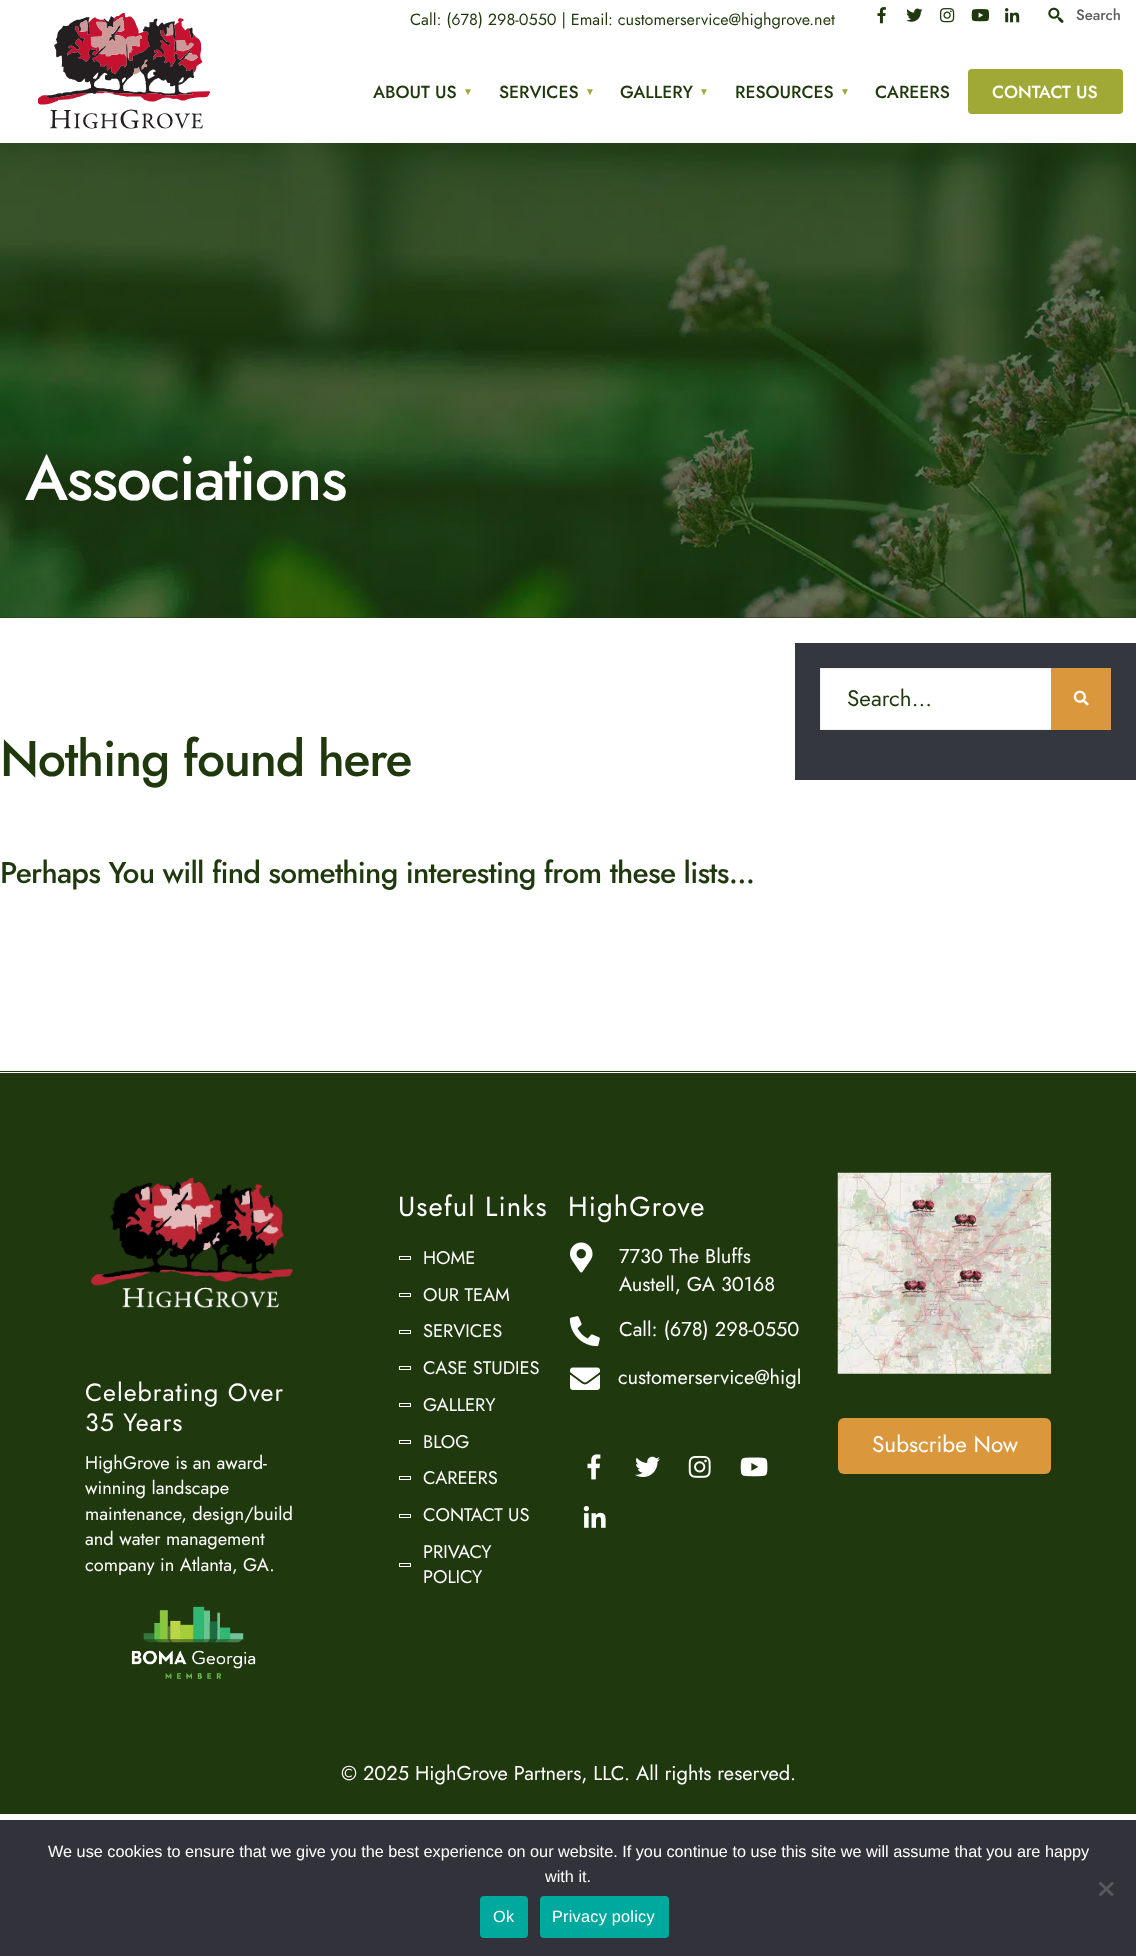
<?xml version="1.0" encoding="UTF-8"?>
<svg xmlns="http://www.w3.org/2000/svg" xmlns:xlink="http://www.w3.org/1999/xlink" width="1136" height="1956">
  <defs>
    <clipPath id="clip1"><rect x="569" y="1359" width="231" height="40" /></clipPath>
  </defs>
  <rect width="100%" height="100%" fill="#ffffff" />
  <image x="38" y="13" width="172" height="116" xlink:href="image1.png" />
  <image x="877" y="7" width="9" height="17" xlink:href="image2.png" />
  <image x="906" y="8" width="17" height="14" xlink:href="image3.png" />
  <image x="940" y="8" width="15" height="15" xlink:href="image4.png" />
  <image x="971" y="9" width="19" height="13" xlink:href="image5.png" />
  <image x="1005" y="8" width="15" height="15" xlink:href="image6.png" />
  <image x="1048" y="7" width="16" height="16" xlink:href="image7.png" />
  <rect x="968" y="69" width="155" height="45" rx="4" fill="#a1a936" />
  <rect y="143" width="1136" height="475" fill="#1f380d" />
  <image x="0" y="143" width="1136" height="475" xlink:href="image8.png" />
  <rect x="795" y="643" width="341" height="137" fill="#35373f" />
  <rect x="821" y="669" width="230" height="60" fill="#ffffff" />
  <rect x="820.5" y="668.5" width="290" height="61" fill="none" stroke="#efefef" />
  <rect x="1051" y="668" width="60" height="62" fill="#db973c" />
  <image x="1073" y="690" width="16" height="16" xlink:href="image9.png" />
  <rect y="1073" width="1136" height="741" fill="#1f380d" />
  <rect y="1071" width="1136" height="1" fill="#1f380d" />
  <rect x="399.5" y="1256.5" width="11" height="3" fill="none" stroke="#ffffff" />
  <rect x="399.5" y="1293.5" width="11" height="3" fill="none" stroke="#ffffff" />
  <rect x="399.5" y="1330.5" width="11" height="3" fill="none" stroke="#ffffff" />
  <rect x="399.5" y="1366.5" width="11" height="3" fill="none" stroke="#ffffff" />
  <rect x="399.5" y="1403.5" width="11" height="3" fill="none" stroke="#ffffff" />
  <rect x="399.5" y="1440.5" width="11" height="3" fill="none" stroke="#ffffff" />
  <rect x="399.5" y="1476.5" width="11" height="3" fill="none" stroke="#ffffff" />
  <rect x="399.5" y="1514.5" width="11" height="3" fill="none" stroke="#ffffff" />
  <rect x="399.5" y="1563.5" width="11" height="3" fill="none" stroke="#ffffff" />
  <image x="570" y="1242" width="23" height="31" xlink:href="image10.png" />
  <image x="569" y="1316" width="31" height="31" xlink:href="image11.png" />
  <image x="570" y="1367" width="30" height="23" xlink:href="image12.png" />
  <image x="587" y="1454" width="14" height="26" xlink:href="image13.png" />
  <image x="635" y="1456" width="25" height="21" xlink:href="image14.png" />
  <image x="688" y="1455" width="23" height="23" xlink:href="image15.png" />
  <image x="740" y="1457" width="28" height="20" xlink:href="image16.png" />
  <image x="583" y="1506" width="23" height="22" xlink:href="image17.png" />
  <image x="91" y="1177" width="203" height="131" xlink:href="image18.png" />
  <image x="131" y="1606" width="125" height="73" xlink:href="image19.png" />
  <image x="837" y="1172" width="215" height="202" xlink:href="image20.png" />
  <rect x="838" y="1418" width="213" height="56" rx="6" fill="#db973c" />
  <rect y="1820" width="1136" height="136" fill="#32323a" />
  <path d="M 1112 1881.5 l 2 2 l -13.5 13 l -2 -2 z" fill="#59595d" />
  <path d="M 1098.5 1883.5 l 2 -2 l 13.5 13 l -2 2 z" fill="#59595d" />
  <rect x="480" y="1896" width="48" height="42" rx="4" fill="#00a99d" />
  <rect x="540" y="1896" width="129" height="42" rx="4" fill="#00a99d" />
  <text x="410" y="25" style="font-family: Jost; font-size: 16.25px; fill: #1f380d">Call: (678) 298-0550 | Email: customerservice@highgrove.net</text>
  <text x="1076" y="20" style="font-family: Jost; font-size: 15px; font-weight: 500; fill: #5f5f5f">Search</text>
  <text x="373" y="98" style="font-family: Jost; font-size: 17.5px; font-weight: 500; fill: #1f380d">ABOUT US</text>
  <text x="463" y="95" style="font-family: Liberation Sans; font-size: 10px; fill: #a1a936">▼</text>
  <text x="499" y="98" style="font-family: Jost; font-size: 17.5px; font-weight: 500; fill: #1f380d">SERVICES</text>
  <text x="585" y="95" style="font-family: Liberation Sans; font-size: 10px; fill: #a1a936">▼</text>
  <text x="620" y="98" style="font-family: Jost; font-size: 17.5px; font-weight: 500; fill: #1f380d">GALLERY</text>
  <text x="699" y="95" style="font-family: Liberation Sans; font-size: 10px; fill: #a1a936">▼</text>
  <text x="735" y="98" style="font-family: Jost; font-size: 17.5px; font-weight: 500; fill: #1f380d">RESOURCES</text>
  <text x="840" y="95" style="font-family: Liberation Sans; font-size: 10px; fill: #a1a936">▼</text>
  <text x="875" y="98" style="font-family: Jost; font-size: 17.5px; font-weight: 500; fill: #1f380d">CAREERS</text>
  <text x="992" y="98" style="font-family: Jost; font-size: 17.5px; font-weight: 500; fill: #ffffff">CONTACT US</text>
  <text x="25" y="500" style="font-family: Jost; font-size: 62.5px; font-weight: 500; letter-spacing: -1.5px; fill: #ffffff">Associations</text>
  <text x="847" y="706" style="font-family: Jost; font-size: 22.5px; fill: #1f380d">Search...</text>
  <text x="0" y="776" style="font-family: Jost; font-size: 50px; font-weight: 500; letter-spacing: -1.25px; fill: #1f380d">Nothing found here</text>
  <text x="0" y="883" style="font-family: Jost; font-size: 30px; font-weight: 500; letter-spacing: -0.75px; fill: #1f380d">Perhaps You will find something interesting from these lists...</text>
  <text x="398" y="1216" style="font-family: Jost; font-size: 27.5px; letter-spacing: 1.1px; fill: #ffffff">Useful Links</text>
  <text x="423" y="1264" style="font-family: Jost; font-size: 18.25px; fill: #ffffff">HOME</text>
  <text x="423" y="1301" style="font-family: Jost; font-size: 18.25px; fill: #ffffff">OUR TEAM</text>
  <text x="423" y="1337" style="font-family: Jost; font-size: 18.25px; fill: #ffffff">SERVICES</text>
  <text x="423" y="1374" style="font-family: Jost; font-size: 18.25px; fill: #ffffff">CASE STUDIES</text>
  <text x="423" y="1411" style="font-family: Jost; font-size: 18.25px; fill: #ffffff">GALLERY</text>
  <text x="423" y="1448" style="font-family: Jost; font-size: 18.25px; fill: #ffffff">BLOG</text>
  <text x="423" y="1484" style="font-family: Jost; font-size: 18.25px; fill: #ffffff">CAREERS</text>
  <text x="423" y="1521" style="font-family: Jost; font-size: 18.25px; fill: #ffffff">CONTACT US</text>
  <text x="423" y="1558" style="font-family: Jost; font-size: 18.25px; fill: #ffffff">PRIVACY</text>
  <text x="423" y="1583" style="font-family: Jost; font-size: 18.25px; fill: #ffffff">POLICY</text>
  <text x="568" y="1216" style="font-family: Jost; font-size: 27.5px; letter-spacing: 1.1px; fill: #ffffff">HighGrove</text>
  <text x="619" y="1263" style="font-family: Jost; font-size: 20px; fill: #ffffff">7730 The Bluffs</text>
  <text x="619" y="1291" style="font-family: Jost; font-size: 20px; fill: #ffffff">Austell, GA 30168</text>
  <text x="619" y="1336" style="font-family: Jost; font-size: 20px; fill: #ffffff">Call: (678) 298-0550</text>
  <g clip-path="url(#clip1)">
    <text x="618" y="1384" style="font-family: Jost; font-size: 20px; fill: #ffffff">customerservice@high</text>
  </g>
  <text x="85" y="1401" style="font-family: Jost; font-size: 25px; letter-spacing: 1px; fill: #ffffff">Celebrating Over</text>
  <text x="85" y="1431" style="font-family: Jost; font-size: 25px; letter-spacing: 1px; fill: #ffffff">35 Years</text>
  <text x="85" y="1469" style="font-family: Jost; font-size: 18.25px; fill: #ffffff">HighGrove is an award-</text>
  <text x="85" y="1494" style="font-family: Jost; font-size: 18.25px; fill: #ffffff">winning landscape</text>
  <text x="85" y="1520" style="font-family: Jost; font-size: 18.25px; fill: #ffffff">maintenance, design/build</text>
  <text x="85" y="1545" style="font-family: Jost; font-size: 18.25px; fill: #ffffff">and water management</text>
  <text x="85" y="1571" style="font-family: Jost; font-size: 18.25px; fill: #ffffff">company in Atlanta, GA.</text>
  <text x="872" y="1452" style="font-family: Jost; font-size: 22.5px; fill: #ffffff">Subscribe Now</text>
  <text x="341" y="1780" style="font-family: Jost; font-size: 20px; fill: #ffffff">© 2025 HighGrove Partners, LLC. All rights reserved.</text>
  <text x="48" y="1857" style="font-family: Liberation Sans; font-size: 16.25px; fill: #ffffff">We use cookies to ensure that we give you the best experience on our website. If you continue to use this site we will assume that you are happy</text>
  <text x="545" y="1882" style="font-family: Liberation Sans; font-size: 16.25px; fill: #ffffff">with it.</text>
  <text x="493" y="1922" style="font-family: Liberation Sans; font-size: 16.25px; letter-spacing: 0.25px; fill: #ffffff">Ok</text>
  <text x="552" y="1922" style="font-family: Liberation Sans; font-size: 16.25px; letter-spacing: 0.25px; fill: #ffffff">Privacy policy</text>
</svg>
